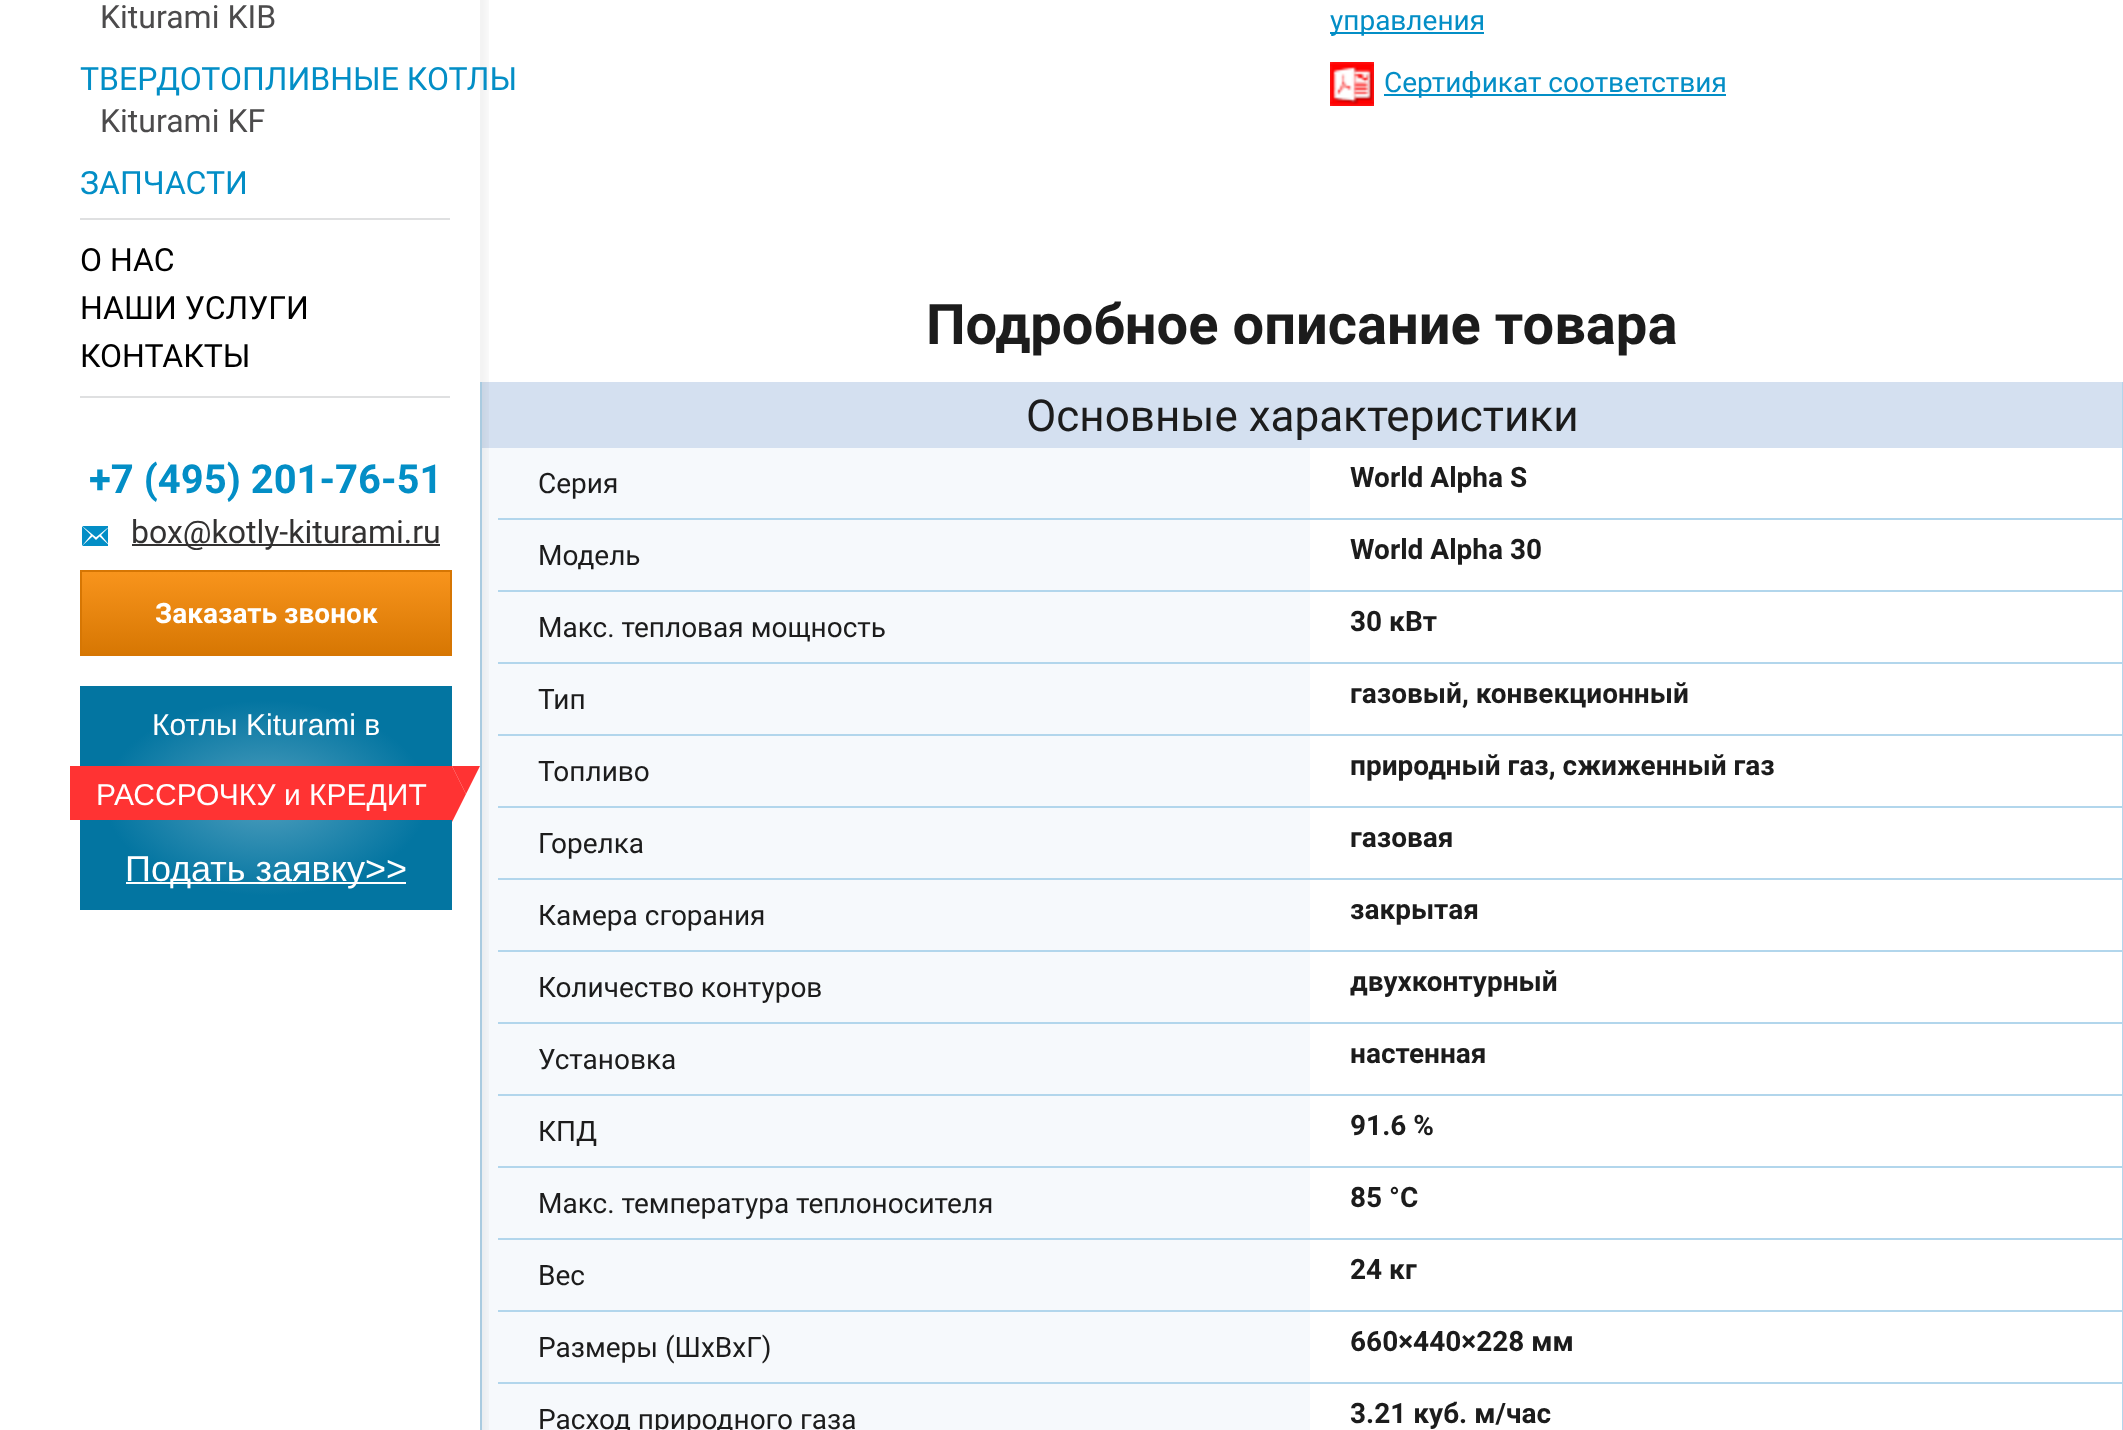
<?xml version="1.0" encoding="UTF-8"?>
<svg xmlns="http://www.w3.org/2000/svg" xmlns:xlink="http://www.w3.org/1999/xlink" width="2123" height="1430">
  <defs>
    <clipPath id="clip1"><rect x="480" y="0" width="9" height="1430" /></clipPath>
    <linearGradient id="g1" gradientUnits="userSpaceOnUse" x1="266" y1="572" x2="266" y2="654"><stop offset="0" stop-color="#f8941c" /><stop offset="1" stop-color="#d77703" /></linearGradient>
    <radialGradient id="g2" gradientUnits="userSpaceOnUse" cx="0" cy="0" r="1" gradientTransform="matrix(186 0 0 112 266 798)"><stop offset="0" stop-color="#4f9ebd" /><stop offset="0.87" stop-color="#0375a1" /></radialGradient>
  </defs>
  <rect width="100%" height="100%" fill="#ffffff" />
  <rect x="480" y="382" width="2" height="1048" fill="#b2d6ec" />
  <rect x="482" y="382" width="1640" height="66" fill="#d4e0f0" />
  <rect x="482" y="448" width="828" height="982" fill="#f6f9fc" />
  <rect x="498" y="518" width="1624" height="2" fill="#b2d6ec" />
  <rect x="498" y="590" width="1624" height="2" fill="#b2d6ec" />
  <rect x="498" y="662" width="1624" height="2" fill="#b2d6ec" />
  <rect x="498" y="734" width="1624" height="2" fill="#b2d6ec" />
  <rect x="498" y="806" width="1624" height="2" fill="#b2d6ec" />
  <rect x="498" y="878" width="1624" height="2" fill="#b2d6ec" />
  <rect x="498" y="950" width="1624" height="2" fill="#b2d6ec" />
  <rect x="498" y="1022" width="1624" height="2" fill="#b2d6ec" />
  <rect x="498" y="1094" width="1624" height="2" fill="#b2d6ec" />
  <rect x="498" y="1166" width="1624" height="2" fill="#b2d6ec" />
  <rect x="498" y="1238" width="1624" height="2" fill="#b2d6ec" />
  <rect x="498" y="1310" width="1624" height="2" fill="#b2d6ec" />
  <rect x="498" y="1382" width="1624" height="2" fill="#b2d6ec" />
  <g clip-path="url(#clip1)">
    <rect x="8" y="-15" width="480" height="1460" fill="#000000" fill-opacity="0.05" filter="blur(5px)" />
  </g>
  <rect x="80" y="218" width="370" height="2" fill="#dfe0e1" />
  <rect x="80" y="396" width="370" height="2" fill="#dfe0e1" />
  <image x="82" y="526" width="26" height="20" xlink:href="image1.png" />
  <rect x="132" y="544" width="308" height="2" fill="#333232" />
  <rect x="82" y="572" width="368" height="82" fill="url(#g1)" />
  <rect x="81" y="571" width="370" height="84" fill="none" stroke="#d67603" stroke-width="2" />
  <rect x="80" y="686" width="372" height="224" fill="url(#g2)" />
  <rect x="70" y="766" width="382" height="54" fill="#ff3333" />
  <path d="M 452 766 h 28 l -14 28 z" fill="#ff3333" />
  <path d="M 452 822 v -56 l 14 28 z" fill="#ff3333" />
  <rect x="126" y="882" width="280" height="2" fill="#ffffff" />
  <rect x="1330" y="32" width="154" height="2" fill="#038ec6" />
  <image x="1330" y="62" width="44" height="44" xlink:href="image2.png" />
  <rect x="1384" y="94" width="342" height="2" fill="#038ec6" />
  <rect x="2122" y="382" width="1" height="1048" fill="#b2d6ec" />
  <text x="100" y="28" style="font-family: Roboto; font-size: 32px; fill: #4c4b4c">Kiturami KIB</text>
  <text x="80" y="90" style="font-family: Roboto; font-size: 32px; fill: #038ec6">ТВЕРДОТОПЛИВНЫЕ КОТЛЫ</text>
  <text x="100" y="132" style="font-family: Roboto; font-size: 32px; fill: #4c4b4c">Kiturami KF</text>
  <text x="80" y="194" style="font-family: Roboto; font-size: 32px; fill: #038ec6">ЗАПЧАСТИ</text>
  <text x="80" y="271" style="font-family: Roboto; font-size: 32px; fill: #000000">О НАС</text>
  <text x="80" y="319" style="font-family: Roboto; font-size: 32px; fill: #000000">НАШИ УСЛУГИ</text>
  <text x="80" y="367" style="font-family: Roboto; font-size: 32px; fill: #000000">КОНТАКТЫ</text>
  <text x="89" y="493" style="font-family: Roboto; font-size: 40px; font-weight: bold; fill: #038ec6">+7 (495) 201-76-51</text>
  <text x="131" y="543" style="font-family: Roboto; font-size: 32px; fill: #333232">box@kotly-kiturami.ru</text>
  <text x="155" y="623" style="font-family: Roboto; font-size: 28px; font-weight: bold; fill: #ffffff">Заказать звонок</text>
  <text x="152" y="735" style="font-family: Liberation Sans; font-size: 30px; fill: #ffffff">Котлы Kiturami в</text>
  <text x="96" y="805" style="font-family: Liberation Sans; font-size: 30px; fill: #ffffff">РАССРОЧКУ и КРЕДИТ</text>
  <text x="125" y="881" style="font-family: Liberation Sans; font-size: 36px; fill: #ffffff">Подать заявку&gt;&gt;</text>
  <text x="1330" y="30" style="font-family: Roboto; font-size: 28px; fill: #038ec6">управления</text>
  <text x="1384" y="92" style="font-family: Roboto; font-size: 28px; fill: #038ec6">Сертификат соответствия</text>
  <text x="926" y="344" style="font-family: Roboto; font-size: 56px; font-weight: bold; fill: #1c1c1c">Подробное описание товара</text>
  <text x="1026" y="431" style="font-family: Roboto; font-size: 44px; fill: #1c1c1c">Основные характеристики</text>
  <text x="538" y="493" style="font-family: Roboto; font-size: 28px; fill: #1c1c1c">Серия</text>
  <text x="1350" y="487" style="font-family: Roboto; font-size: 28px; font-weight: bold; fill: #1c1c1c">World Alpha S</text>
  <text x="538" y="565" style="font-family: Roboto; font-size: 28px; fill: #1c1c1c">Модель</text>
  <text x="1350" y="559" style="font-family: Roboto; font-size: 28px; font-weight: bold; fill: #1c1c1c">World Alpha 30</text>
  <text x="538" y="637" style="font-family: Roboto; font-size: 28px; fill: #1c1c1c">Макс. тепловая мощность</text>
  <text x="1350" y="631" style="font-family: Roboto; font-size: 28px; font-weight: bold; fill: #1c1c1c">30 кВт</text>
  <text x="538" y="709" style="font-family: Roboto; font-size: 28px; fill: #1c1c1c">Тип</text>
  <text x="1350" y="703" style="font-family: Roboto; font-size: 28px; font-weight: bold; fill: #1c1c1c">газовый, конвекционный</text>
  <text x="538" y="781" style="font-family: Roboto; font-size: 28px; fill: #1c1c1c">Топливо</text>
  <text x="1350" y="775" style="font-family: Roboto; font-size: 28px; font-weight: bold; fill: #1c1c1c">природный газ, сжиженный газ</text>
  <text x="538" y="853" style="font-family: Roboto; font-size: 28px; fill: #1c1c1c">Горелка</text>
  <text x="1350" y="847" style="font-family: Roboto; font-size: 28px; font-weight: bold; fill: #1c1c1c">газовая</text>
  <text x="538" y="925" style="font-family: Roboto; font-size: 28px; fill: #1c1c1c">Камера сгорания</text>
  <text x="1350" y="919" style="font-family: Roboto; font-size: 28px; font-weight: bold; fill: #1c1c1c">закрытая</text>
  <text x="538" y="997" style="font-family: Roboto; font-size: 28px; fill: #1c1c1c">Количество контуров</text>
  <text x="1350" y="991" style="font-family: Roboto; font-size: 28px; font-weight: bold; fill: #1c1c1c">двухконтурный</text>
  <text x="538" y="1069" style="font-family: Roboto; font-size: 28px; fill: #1c1c1c">Установка</text>
  <text x="1350" y="1063" style="font-family: Roboto; font-size: 28px; font-weight: bold; fill: #1c1c1c">настенная</text>
  <text x="538" y="1141" style="font-family: Roboto; font-size: 28px; fill: #1c1c1c">КПД</text>
  <text x="1350" y="1135" style="font-family: Roboto; font-size: 28px; font-weight: bold; fill: #1c1c1c">91.6 %</text>
  <text x="538" y="1213" style="font-family: Roboto; font-size: 28px; fill: #1c1c1c">Макс. температура теплоносителя</text>
  <text x="1350" y="1207" style="font-family: Roboto; font-size: 28px; font-weight: bold; fill: #1c1c1c">85 °С</text>
  <text x="538" y="1285" style="font-family: Roboto; font-size: 28px; fill: #1c1c1c">Вес</text>
  <text x="1350" y="1279" style="font-family: Roboto; font-size: 28px; font-weight: bold; fill: #1c1c1c">24 кг</text>
  <text x="538" y="1357" style="font-family: Roboto; font-size: 28px; fill: #1c1c1c">Размеры (ШхВхГ)</text>
  <text x="1350" y="1351" style="font-family: Roboto; font-size: 28px; font-weight: bold; fill: #1c1c1c">660×440×228 мм</text>
  <text x="538" y="1429" style="font-family: Roboto; font-size: 28px; fill: #1c1c1c">Расход природного газа</text>
  <text x="1350" y="1423" style="font-family: Roboto; font-size: 28px; font-weight: bold; fill: #1c1c1c">3.21 куб. м/час</text>
</svg>
